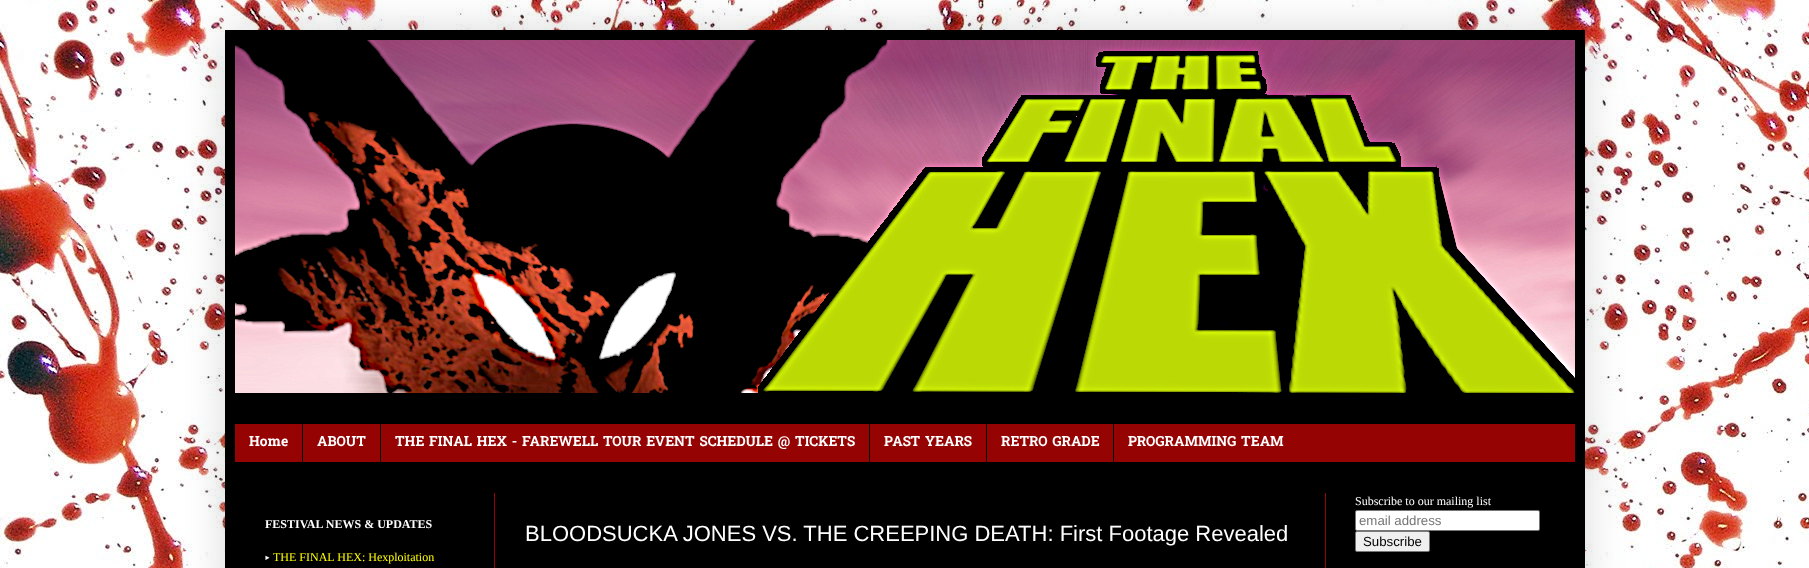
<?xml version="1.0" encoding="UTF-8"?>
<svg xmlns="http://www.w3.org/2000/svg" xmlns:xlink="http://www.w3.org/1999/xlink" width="1809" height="568">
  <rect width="100%" height="100%" fill="#ffffff" />
  <image x="0" y="0" width="1809" height="568" xlink:href="image1.png" />
  <rect x="225" y="30" width="1360" height="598" fill="#000000" fill-opacity="0.15" filter="blur(20px)" />
  <rect x="225" y="30" width="1360" height="538" fill="#000000" />
  <image x="235" y="40" width="1340" height="353" xlink:href="image2.png" />
  <rect x="235" y="424" width="1340" height="38" fill="#960303" />
  <rect x="302" y="424" width="1" height="38" fill="#000000" />
  <rect x="380" y="424" width="1" height="38" fill="#000000" />
  <rect x="869" y="424" width="1" height="38" fill="#000000" />
  <rect x="986" y="424" width="1" height="38" fill="#000000" />
  <rect x="1113" y="424" width="1" height="38" fill="#000000" />
  <rect x="494" y="493" width="1" height="75" fill="#960303" />
  <rect x="1325" y="493" width="1" height="75" fill="#960303" />
  <rect x="1355.5" y="510.5" width="184" height="20" rx="1.5" fill="#ffffff" stroke="#767676" />
  <rect x="1355.5" y="531.5" width="74" height="20" rx="1.5" fill="#efefef" stroke="#767676" />
  <text x="249" y="446" style="font-family: Hanuman; font-size: 14px; font-weight: bold; fill: #ffffff">Home</text>
  <text x="317" y="446" style="font-family: Hanuman; font-size: 14px; font-weight: bold; fill: #ffffff">ABOUT</text>
  <text x="395" y="446" style="font-family: Hanuman; font-size: 14px; font-weight: bold; fill: #ffffff">THE FINAL HEX - FAREWELL TOUR EVENT SCHEDULE @ TICKETS</text>
  <text x="884" y="446" style="font-family: Hanuman; font-size: 14px; font-weight: bold; fill: #ffffff">PAST YEARS</text>
  <text x="1001" y="446" style="font-family: Hanuman; font-size: 14px; font-weight: bold; fill: #ffffff">RETRO GRADE</text>
  <text x="1128" y="446" style="font-family: Hanuman; font-size: 14px; font-weight: bold; fill: #ffffff">PROGRAMMING TEAM</text>
  <text x="265" y="528" style="font-family: Liberation Serif; font-size: 12px; font-weight: bold; fill: #ffffff">FESTIVAL NEWS &amp; UPDATES</text>
  <text x="265" y="561" style="font-family: FreeSans; font-size: 12px; fill: #ffffff">‣</text>
  <text x="273" y="561" style="font-family: Liberation Serif; font-size: 12px; fill: #ffff00">THE FINAL HEX: Hexploitation</text>
  <text x="525" y="541" style="font-family: Liberation Sans; font-size: 22px; fill: #ffffff">BLOODSUCKA JONES VS. THE CREEPING DEATH: First Footage Revealed</text>
  <text x="1355" y="505" style="font-family: Liberation Serif; font-size: 12px; fill: #ffffff">Subscribe to our mailing list</text>
  <text x="1359" y="525" style="font-family: Liberation Sans; font-size: 13.25px; fill: #757575">email address</text>
  <text x="1363" y="546" style="font-family: Liberation Sans; font-size: 13.25px; fill: #000000">Subscribe</text>
</svg>
